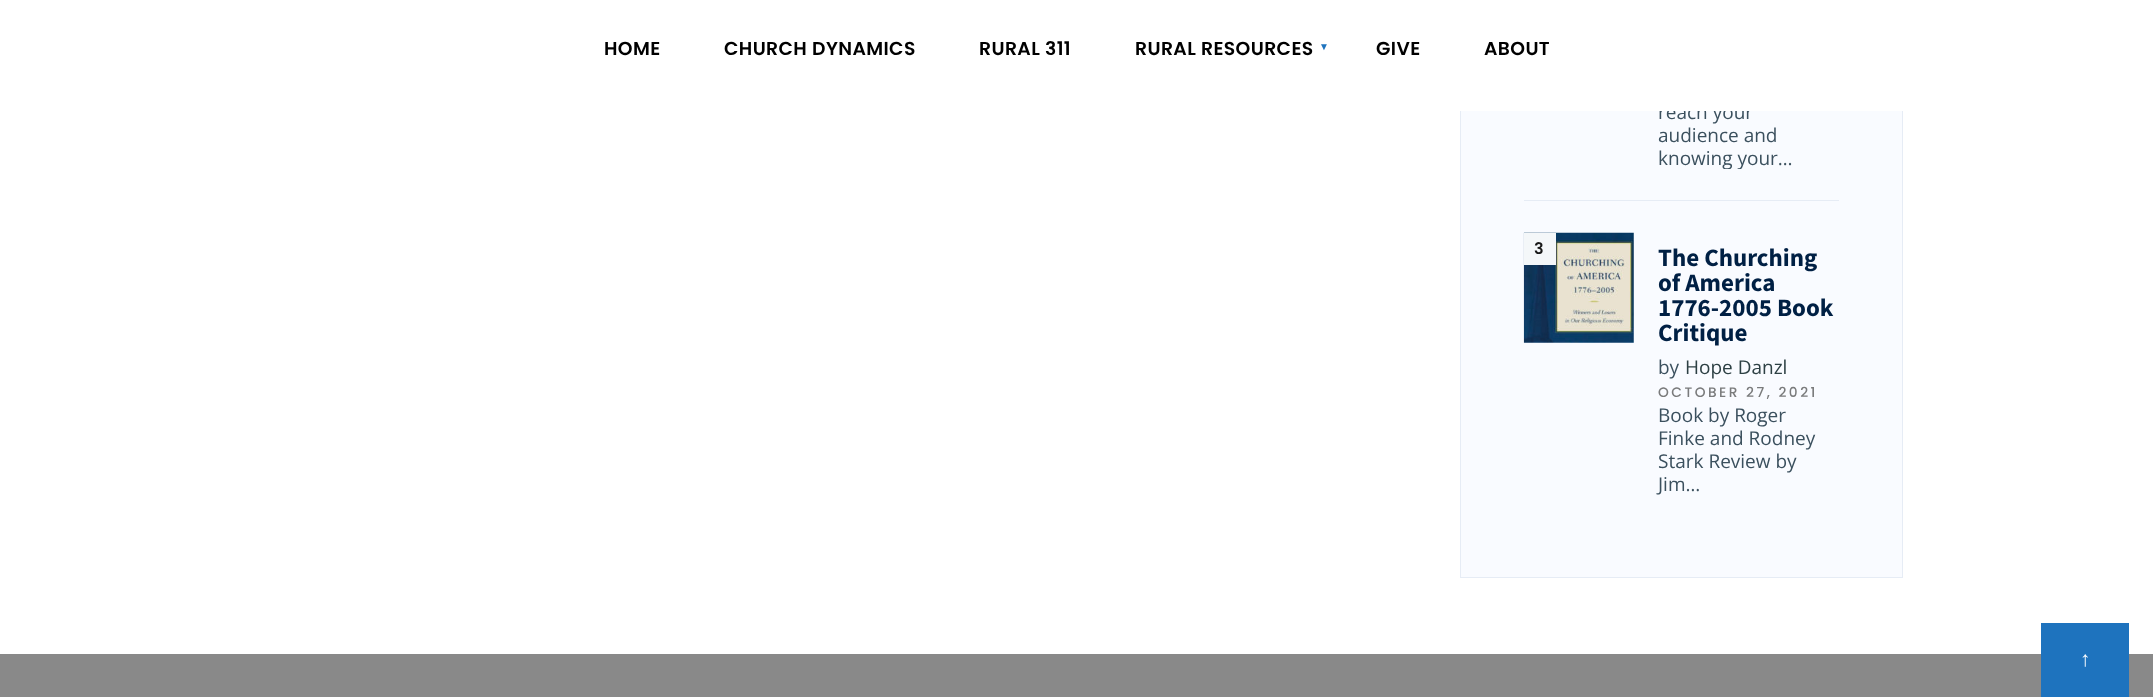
<?xml version="1.0" encoding="UTF-8"?>
<svg xmlns="http://www.w3.org/2000/svg" xmlns:xlink="http://www.w3.org/1999/xlink" width="2153" height="697">
  <defs>
    <clipPath id="clip1"><rect x="1634" width="205" height="169" /></clipPath>
  </defs>
  <rect width="100%" height="100%" fill="#ffffff" />
  <rect x="1461" y="111" width="441" height="466" fill="#f9fbff" />
  <rect x="1460.5" y="-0.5" width="442" height="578" fill="none" stroke="#e6ecf5" />
  <rect x="1524" y="200" width="315" height="1" fill="#e6ecf5" />
  <image x="1523" y="232" width="111" height="111" xlink:href="image1.png" />
  <rect x="1524" y="233" width="32" height="32" fill="#f4f7f9" />
  <rect y="654" width="2153" height="43" fill="#898989" />
  <rect x="2041" y="623" width="88" height="74" fill="#1e73be" />
  <text x="604" y="55" style="font-family: Poppins; font-size: 18.75px; font-weight: 600; letter-spacing: 0.4px; fill: #000000">HOME</text>
  <text x="724" y="55" style="font-family: Poppins; font-size: 18.75px; font-weight: 600; letter-spacing: 0.4px; fill: #000000">CHURCH DYNAMICS</text>
  <text x="979" y="55" style="font-family: Poppins; font-size: 18.75px; font-weight: 600; letter-spacing: 0.4px; fill: #000000">RURAL 311</text>
  <text x="1135" y="55" style="font-family: Poppins; font-size: 18.75px; font-weight: 600; letter-spacing: 0.4px; fill: #000000">RURAL RESOURCES</text>
  <text x="1319" y="50" style="font-family: Liberation Sans; font-size: 10px; letter-spacing: 0.4px; fill: #1e73be">▼</text>
  <text x="1376" y="55" style="font-family: Poppins; font-size: 18.75px; font-weight: 600; letter-spacing: 0.4px; fill: #000000">GIVE</text>
  <text x="1658" y="119" style="font-family: Open Sans; font-size: 19px; fill: #3b505e">reach your</text>
  <rect x="1460" width="443" height="111" fill="#ffffff" />
  <text x="1484" y="55" style="font-family: Poppins; font-size: 18.75px; font-weight: 600; letter-spacing: 0.4px; fill: #000000">ABOUT</text>
  <text x="1658" y="142" style="font-family: Open Sans; font-size: 19px; fill: #3b505e">audience and</text>
  <g clip-path="url(#clip1)">
    <text x="1658" y="165" style="font-family: Open Sans; font-size: 19px; fill: #3b505e">knowing your…</text>
  </g>
  <text x="1534" y="254" style="font-family: Poppins; font-size: 16px; font-weight: 600; fill: #191919">3</text>
  <text x="1658" y="266" style="font-family: Source Sans Pro; font-size: 25px; font-weight: bold; fill: #002044">The Churching</text>
  <text x="1658" y="291" style="font-family: Source Sans Pro; font-size: 25px; font-weight: bold; fill: #002044">of America</text>
  <text x="1658" y="316" style="font-family: Source Sans Pro; font-size: 25px; font-weight: bold; fill: #002044">1776-2005 Book</text>
  <text x="1658" y="341" style="font-family: Source Sans Pro; font-size: 25px; font-weight: bold; fill: #002044">Critique</text>
  <text x="1658" y="374" style="font-family: Open Sans; font-size: 19px; fill: #3b505e">by</text>
  <text x="1685" y="374" style="font-family: Open Sans; font-size: 19px; fill: #2d4044">Hope Danzl</text>
  <text x="1658" y="397" style="font-family: Poppins; font-size: 13.75px; font-weight: 500; letter-spacing: 2.5px; fill: #7a7b7c">OCTOBER 27, 2021</text>
  <text x="1658" y="422" style="font-family: Open Sans; font-size: 19px; fill: #3b505e">Book by Roger</text>
  <text x="1658" y="445" style="font-family: Open Sans; font-size: 19px; fill: #3b505e">Finke and Rodney</text>
  <text x="1658" y="468" style="font-family: Open Sans; font-size: 19px; fill: #3b505e">Stark Review by</text>
  <text x="1658" y="491" style="font-family: Open Sans; font-size: 19px; fill: #3b505e">Jim…</text>
  <text x="2080" y="666" style="font-family: Liberation Serif; font-size: 21px; fill: #ffffff">↑</text>
</svg>
